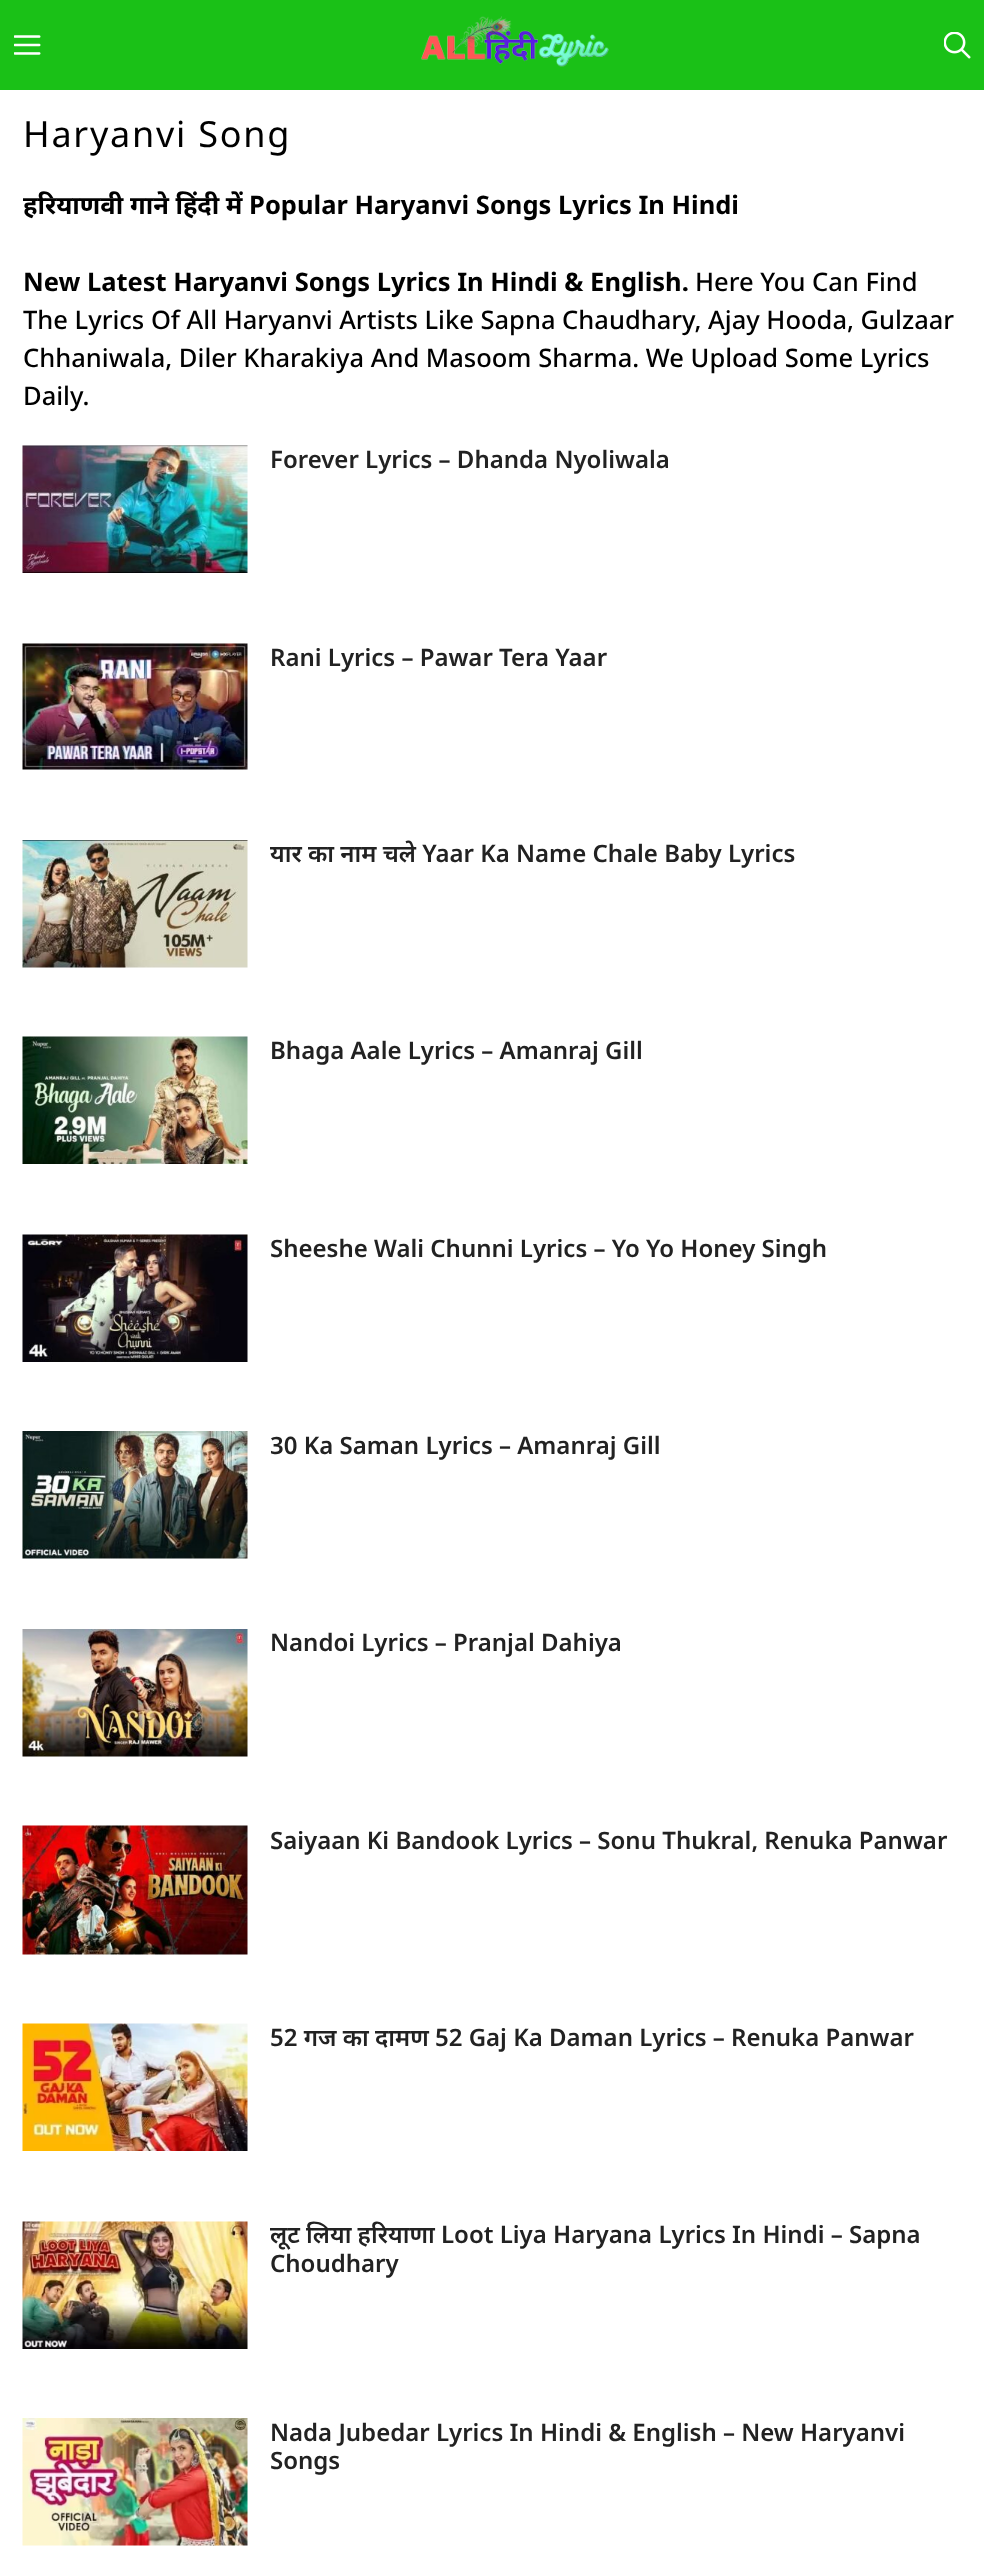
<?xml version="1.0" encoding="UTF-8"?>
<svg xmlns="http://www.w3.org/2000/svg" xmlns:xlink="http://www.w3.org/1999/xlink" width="984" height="2557">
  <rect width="100%" height="100%" fill="#1ac117" />
  <image x="14" y="35" width="27" height="20" xlink:href="image1.png" />
  <image x="421" y="16" width="188" height="51" xlink:href="image2.png" />
  <image x="944" y="32" width="27" height="27" xlink:href="image3.png" />
  <rect y="90" width="984" height="2467" fill="#ffffff" />
  <image x="22" y="445" width="226" height="128" xlink:href="image4.png" />
  <image x="22" y="643" width="226" height="127" xlink:href="image5.png" />
  <image x="22" y="840" width="226" height="128" xlink:href="image6.png" />
  <image x="22" y="1036" width="226" height="128" xlink:href="image7.png" />
  <image x="22" y="1234" width="226" height="128" xlink:href="image8.png" />
  <image x="22" y="1431" width="226" height="128" xlink:href="image9.png" />
  <image x="22" y="1629" width="226" height="128" xlink:href="image10.png" />
  <image x="22" y="1825" width="226" height="130" xlink:href="image11.png" />
  <image x="22" y="2023" width="226" height="128" xlink:href="image12.png" />
  <image x="22" y="2221" width="226" height="128" xlink:href="image13.png" />
  <image x="22" y="2418" width="226" height="128" xlink:href="image14.png" />
  <text x="23" y="147" style="font-family: Noto Sans; font-size: 36px; letter-spacing: 1.75px; fill: #000000">Haryanvi Song</text>
  <text x="23" y="214" style="font-family: Noto Sans; font-size: 25.5px; font-weight: bold; fill: #000000">हरियाणवी गाने हिंदी में Popular Haryanvi Songs Lyrics In Hindi</text>
  <text x="23" y="291" style="font-family: Noto Sans; font-size: 25.5px; font-weight: bold; fill: #000000">New Latest Haryanvi Songs Lyrics In Hindi &amp; English.</text>
  <text x="695" y="291" style="font-family: Noto Sans; font-size: 25.5px; font-weight: 500; fill: #000000">Here You Can Find</text>
  <text x="23" y="329" style="font-family: Noto Sans; font-size: 25.5px; font-weight: 500; fill: #000000">The Lyrics Of All Haryanvi Artists Like Sapna Chaudhary, Ajay Hooda, Gulzaar</text>
  <text x="23" y="367" style="font-family: Noto Sans; font-size: 25.5px; font-weight: 500; fill: #000000">Chhaniwala, Diler Kharakiya And Masoom Sharma. We Upload Some Lyrics</text>
  <text x="23" y="405" style="font-family: Noto Sans; font-size: 25.5px; font-weight: 500; fill: #000000">Daily.</text>
  <text x="270" y="468" style="font-family: Noto Sans; font-size: 24px; font-weight: 600; fill: #222222">Forever Lyrics – Dhanda Nyoliwala</text>
  <text x="270" y="666" style="font-family: Noto Sans; font-size: 24px; font-weight: 600; fill: #222222">Rani Lyrics – Pawar Tera Yaar</text>
  <text x="270" y="862" style="font-family: Noto Sans; font-size: 24px; font-weight: 600; fill: #222222">यार का नाम चले Yaar Ka Name Chale Baby Lyrics</text>
  <text x="270" y="1059" style="font-family: Noto Sans; font-size: 24px; font-weight: 600; fill: #222222">Bhaga Aale Lyrics – Amanraj Gill</text>
  <text x="270" y="1257" style="font-family: Noto Sans; font-size: 24px; font-weight: 600; fill: #222222">Sheeshe Wali Chunni Lyrics – Yo Yo Honey Singh</text>
  <text x="270" y="1454" style="font-family: Noto Sans; font-size: 24px; font-weight: 600; fill: #222222">30 Ka Saman Lyrics – Amanraj Gill</text>
  <text x="270" y="1651" style="font-family: Noto Sans; font-size: 24px; font-weight: 600; fill: #222222">Nandoi Lyrics – Pranjal Dahiya</text>
  <text x="270" y="1849" style="font-family: Noto Sans; font-size: 24px; font-weight: 600; fill: #222222">Saiyaan Ki Bandook Lyrics – Sonu Thukral, Renuka Panwar</text>
  <text x="270" y="2046" style="font-family: Noto Sans; font-size: 24px; font-weight: 600; fill: #222222">52 गज का दामण 52 Gaj Ka Daman Lyrics – Renuka Panwar</text>
  <text x="270" y="2243" style="font-family: Noto Sans; font-size: 24px; font-weight: 600; fill: #222222">लूट लिया हरियाणा Loot Liya Haryana Lyrics In Hindi – Sapna</text>
  <text x="270" y="2272" style="font-family: Noto Sans; font-size: 24px; font-weight: 600; fill: #222222">Choudhary</text>
  <text x="270" y="2441" style="font-family: Noto Sans; font-size: 24px; font-weight: 600; fill: #222222">Nada Jubedar Lyrics In Hindi &amp; English – New Haryanvi</text>
  <text x="270" y="2469" style="font-family: Noto Sans; font-size: 24px; font-weight: 600; fill: #222222">Songs</text>
</svg>
